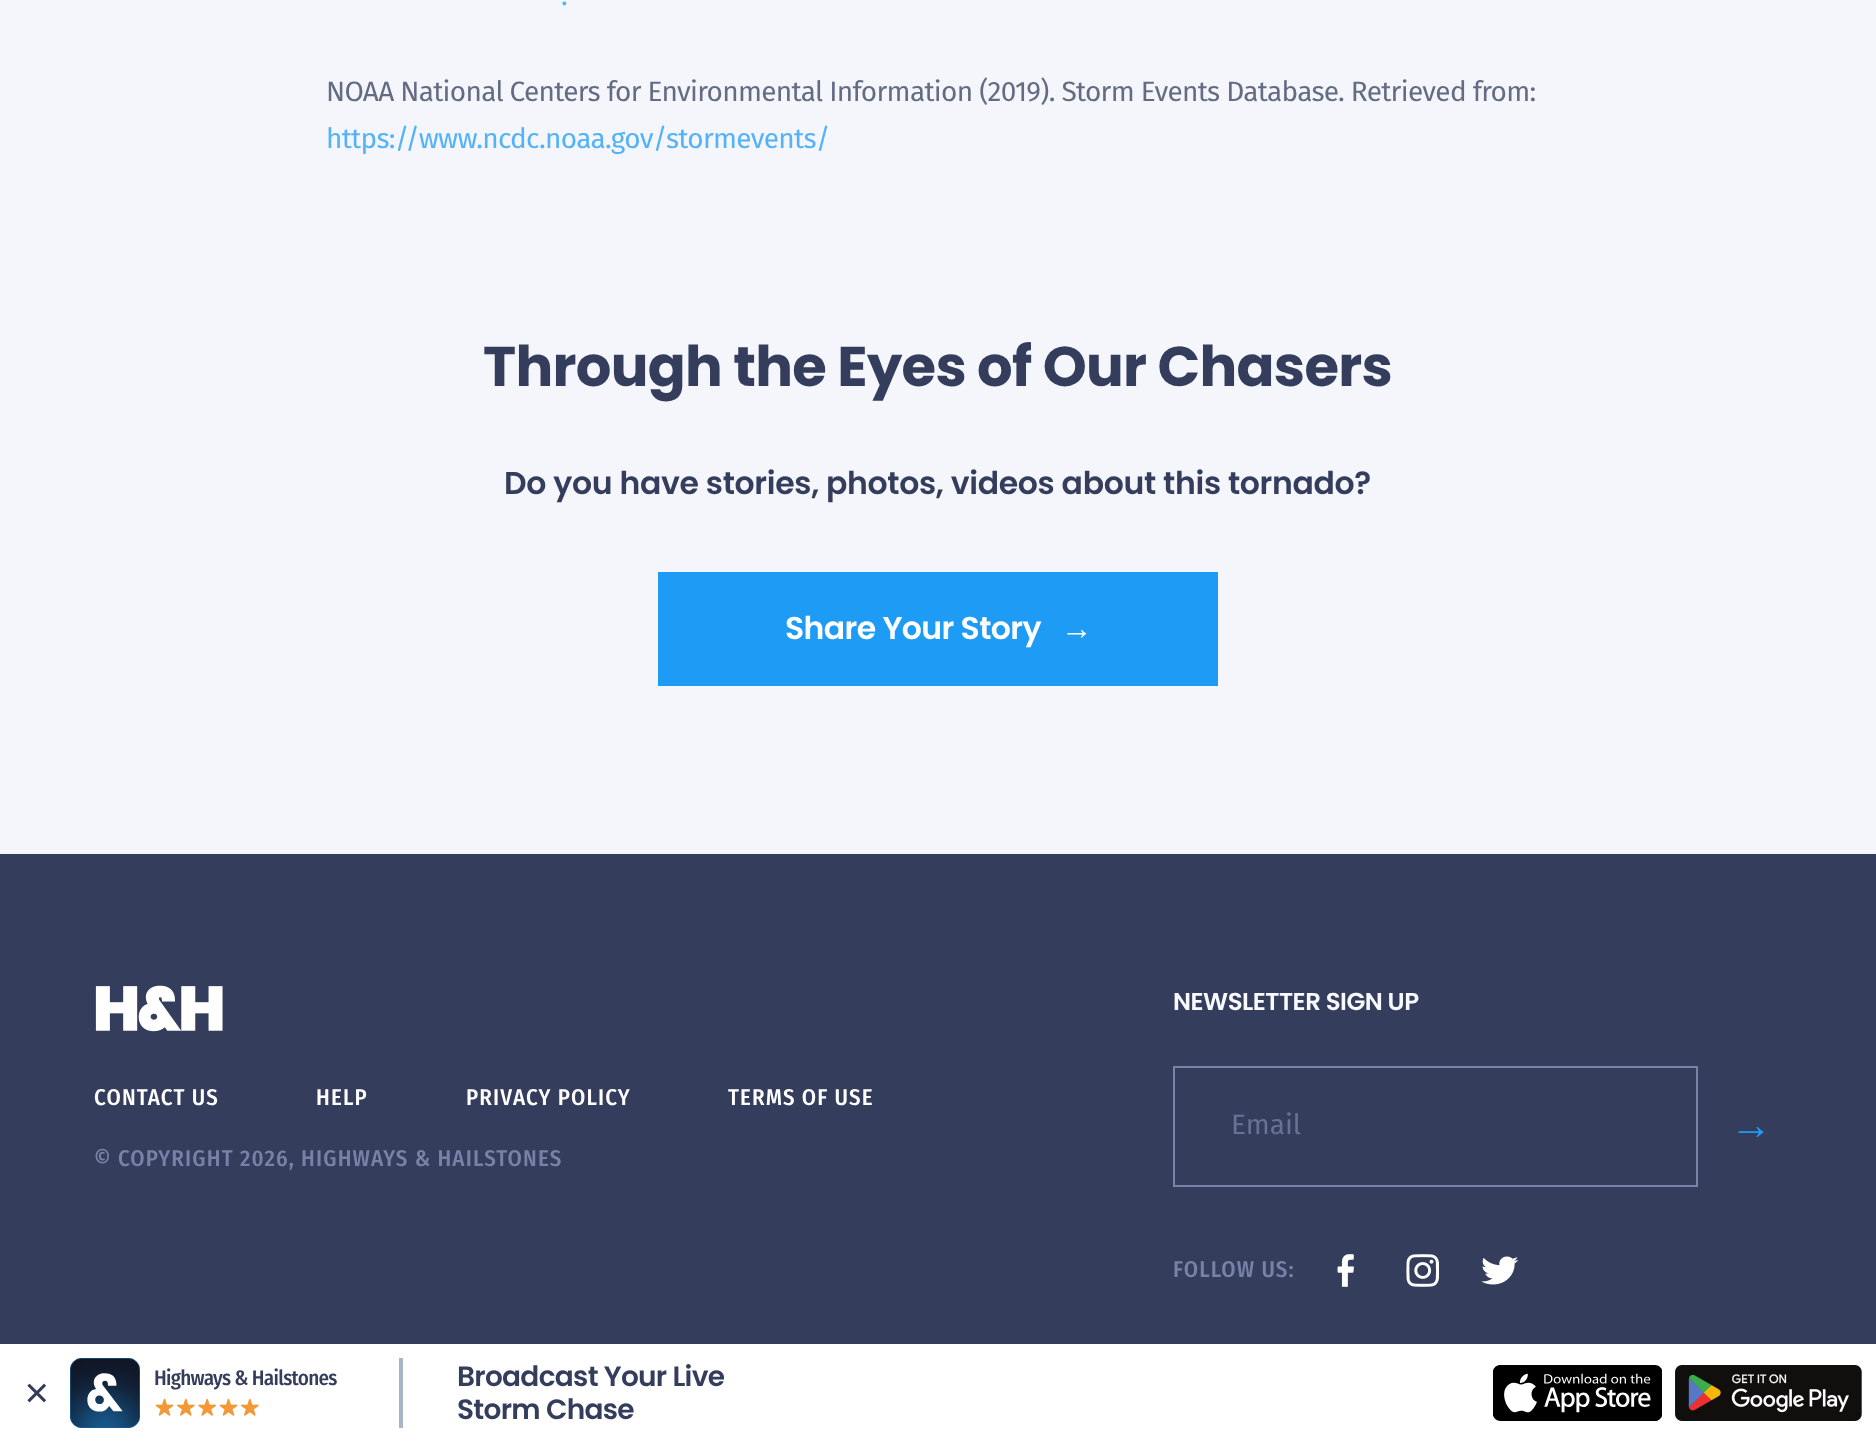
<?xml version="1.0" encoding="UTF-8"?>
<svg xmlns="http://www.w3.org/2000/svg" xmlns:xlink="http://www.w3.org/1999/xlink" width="1876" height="1442">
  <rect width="100%" height="100%" fill="#f4f6fc" />
  <rect x="658" y="572" width="560" height="114" fill="#1e9bf5" />
  <rect y="854" width="1876" height="490" fill="#343e5c" />
  <image x="95" y="985" width="128" height="47" xlink:href="image1.png" />
  <rect x="1174" y="1067" width="523" height="119" fill="none" stroke="#7883a7" stroke-width="2" />
  <image x="1337" y="1254" width="17" height="33" xlink:href="image2.png" />
  <image x="1406" y="1254" width="33" height="33" xlink:href="image3.png" />
  <image x="1481" y="1256" width="38" height="29" xlink:href="image4.png" />
  <rect y="1344" width="1876" height="98" fill="#ffffff" />
  <image x="70" y="1358" width="70" height="70" xlink:href="image5.png" />
  <image x="155" y="1398" width="104" height="18" xlink:href="image6.png" />
  <rect x="399" y="1358" width="4" height="70" fill="#a7b6c6" />
  <image x="1493" y="1365" width="169" height="56" xlink:href="image7.png" />
  <image x="1675" y="1365" width="187" height="56" xlink:href="image8.png" />
  <image x="27" y="1383" width="19" height="20" xlink:href="image9.png" />
  <text x="561" y="5" style="font-family: Fira Sans; font-size: 28px; letter-spacing: -0.7px; fill: #54b2f7">.</text>
  <text x="326" y="101" style="font-family: Fira Sans; font-size: 28px; letter-spacing: -0.7px; fill: #646c84">NOAA National Centers for Environmental Information (2019). Storm Events Database. Retrieved from:</text>
  <text x="326" y="148" style="font-family: Fira Sans; font-size: 28px; letter-spacing: -0.7px; fill: #54b2f7">https://www.ncdc.noaa.gov/stormevents/</text>
  <text x="483" y="386" style="font-family: Poppins; font-size: 56px; font-weight: bold; letter-spacing: -0.7px; fill: #343e5c">Through the Eyes of Our Chasers</text>
  <text x="504" y="494" style="font-family: Poppins; font-size: 31.5px; font-weight: 600; letter-spacing: -0.32px; fill: #343e5c">Do you have stories, photos, videos about this tornado?</text>
  <text x="785" y="639" style="font-family: Poppins; font-size: 31.5px; font-weight: 600; letter-spacing: -0.6px; fill: #ffffff">Share Your Story</text>
  <text x="1061" y="639" style="font-family: Liberation Sans; font-size: 31.5px; font-weight: bold; letter-spacing: -0.6px; fill: #ffffff">→</text>
  <text x="94" y="1105" style="font-family: Fira Sans Condensed; font-size: 22.75px; font-weight: 500; letter-spacing: 1.15px; fill: #ffffff">CONTACT US</text>
  <text x="316" y="1105" style="font-family: Fira Sans Condensed; font-size: 22.75px; font-weight: 500; letter-spacing: 1.15px; fill: #ffffff">HELP</text>
  <text x="466" y="1105" style="font-family: Fira Sans Condensed; font-size: 22.75px; font-weight: 500; letter-spacing: 1.15px; fill: #ffffff">PRIVACY POLICY</text>
  <text x="728" y="1105" style="font-family: Fira Sans Condensed; font-size: 22.75px; font-weight: 500; letter-spacing: 1.15px; fill: #ffffff">TERMS OF USE</text>
  <text x="94" y="1166" style="font-family: Fira Sans Condensed; font-size: 22.75px; font-weight: 500; letter-spacing: 1.15px; fill: #7882a8">© COPYRIGHT 2026, HIGHWAYS &amp; HAILSTONES</text>
  <text x="1173" y="1010" style="font-family: Poppins; font-size: 24.5px; font-weight: 600; letter-spacing: -0.5px; fill: #f9faff">NEWSLETTER SIGN UP</text>
  <text x="1231" y="1134" style="font-family: Fira Sans; font-size: 28px; fill: #677294">Email</text>
  <text x="1730" y="1139" style="font-family: Liberation Sans; font-size: 42px; fill: #1e9bf5">→</text>
  <text x="1173" y="1277" style="font-family: Fira Sans Condensed; font-size: 22.75px; font-weight: 500; letter-spacing: 1.15px; fill: #7882a8">FOLLOW US:</text>
  <text x="154" y="1385" style="font-family: Fira Sans Condensed; font-size: 21px; font-weight: 500; letter-spacing: -0.7px; fill: #343e5c">Highways &amp; Hailstones</text>
  <text x="457" y="1386" style="font-family: Poppins; font-size: 28px; font-weight: 600; letter-spacing: -0.7px; fill: #343e5c">Broadcast Your Live</text>
  <text x="457" y="1419" style="font-family: Poppins; font-size: 28px; font-weight: 600; letter-spacing: -0.7px; fill: #343e5c">Storm Chase</text>
</svg>
